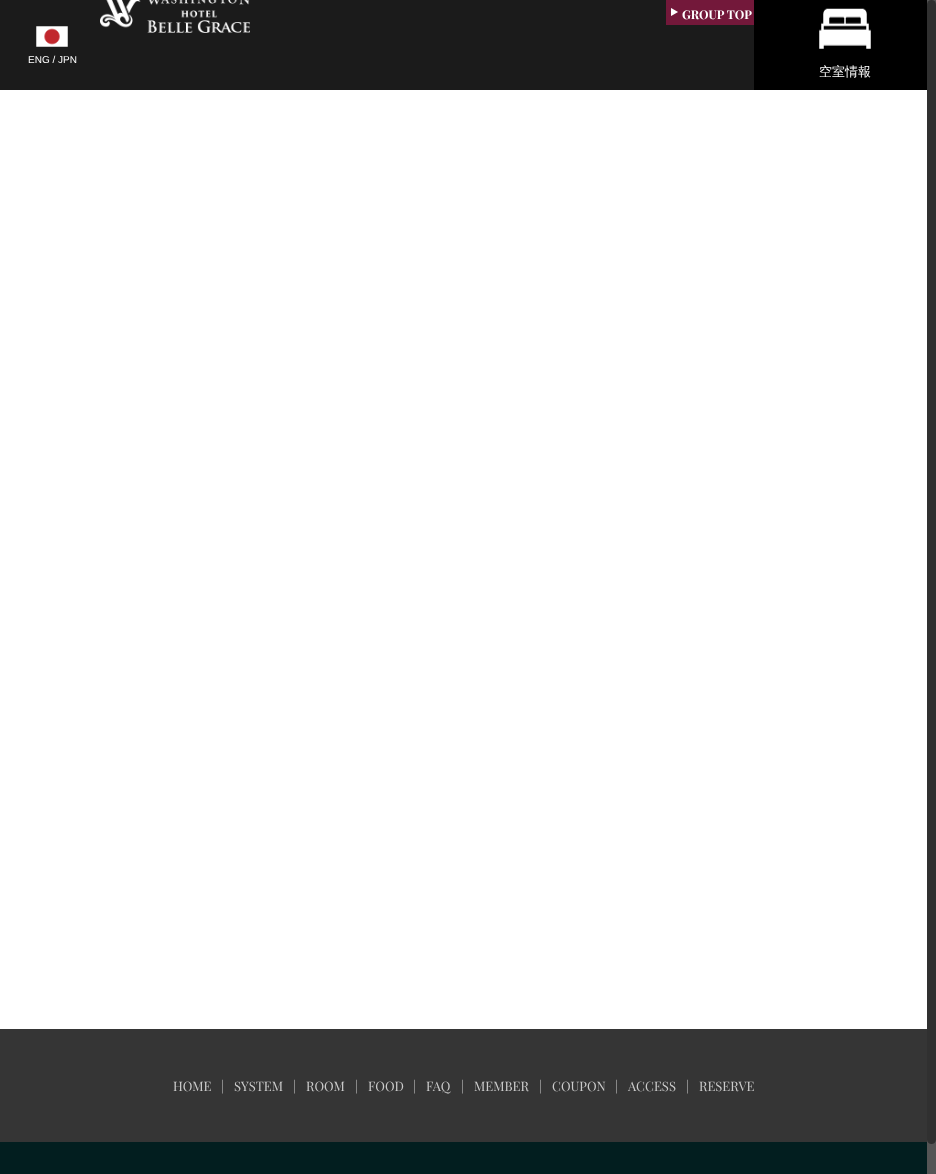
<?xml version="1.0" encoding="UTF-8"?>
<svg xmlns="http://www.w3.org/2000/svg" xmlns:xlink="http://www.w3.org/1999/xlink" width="936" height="1174">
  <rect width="100%" height="100%" fill="#ffffff" />
  <rect width="754" height="90" fill="#1b1b1b" />
  <image x="100" y="0" width="150" height="33" xlink:href="image1.png" />
  <rect x="666" width="88" height="25" fill="#73183a" />
  <image x="671" y="8" width="7" height="8" xlink:href="image2.png" />
  <image x="36" y="26" width="32" height="21" xlink:href="image3.png" />
  <rect x="754" width="173" height="90" fill="#000000" />
  <image x="819" y="8" width="52" height="41" xlink:href="image4.png" />
  <rect y="1029" width="927" height="113" fill="#353535" />
  <rect y="1142" width="927" height="32" fill="#021e1f" />
  <rect x="927" width="9" height="1174" fill="#555555" />
  <rect x="927" width="9" height="1144" rx="4.5" fill="#303030" />
  <text x="682" y="19" style="font-family: Playfair Display; font-size: 12px; font-weight: bold; fill: #ffffff">GROUP TOP</text>
  <text x="28" y="63" style="font-family: Liberation Sans; font-size: 10px; fill: #ffffff">ENG / JPN</text>
  <text x="819" y="76" style="font-family: WenQuanYi Zen Hei; font-size: 13px; font-weight: 500; fill: #ffffff">空室情報</text>
  <text x="173" y="1091" style="font-family: Playfair Display; font-size: 13px; fill: #cccccc">HOME</text>
  <text x="221" y="1091" style="font-family: Playfair Display; font-size: 13px; fill: #cccccc">|</text>
  <text x="234" y="1091" style="font-family: Playfair Display; font-size: 13px; fill: #cccccc">SYSTEM</text>
  <text x="293" y="1091" style="font-family: Playfair Display; font-size: 13px; fill: #cccccc">|</text>
  <text x="306" y="1091" style="font-family: Playfair Display; font-size: 13px; fill: #cccccc">ROOM</text>
  <text x="355" y="1091" style="font-family: Playfair Display; font-size: 13px; fill: #cccccc">|</text>
  <text x="368" y="1091" style="font-family: Playfair Display; font-size: 13px; fill: #cccccc">FOOD</text>
  <text x="413" y="1091" style="font-family: Playfair Display; font-size: 13px; fill: #cccccc">|</text>
  <text x="426" y="1091" style="font-family: Playfair Display; font-size: 13px; fill: #cccccc">FAQ</text>
  <text x="461" y="1091" style="font-family: Playfair Display; font-size: 13px; fill: #cccccc">|</text>
  <text x="474" y="1091" style="font-family: Playfair Display; font-size: 13px; fill: #cccccc">MEMBER</text>
  <text x="539" y="1091" style="font-family: Playfair Display; font-size: 13px; fill: #cccccc">|</text>
  <text x="552" y="1091" style="font-family: Playfair Display; font-size: 13px; fill: #cccccc">COUPON</text>
  <text x="615" y="1091" style="font-family: Playfair Display; font-size: 13px; fill: #cccccc">|</text>
  <text x="628" y="1091" style="font-family: Playfair Display; font-size: 13px; fill: #cccccc">ACCESS</text>
  <text x="686" y="1091" style="font-family: Playfair Display; font-size: 13px; fill: #cccccc">|</text>
  <text x="699" y="1091" style="font-family: Playfair Display; font-size: 13px; fill: #cccccc">RESERVE</text>
</svg>
